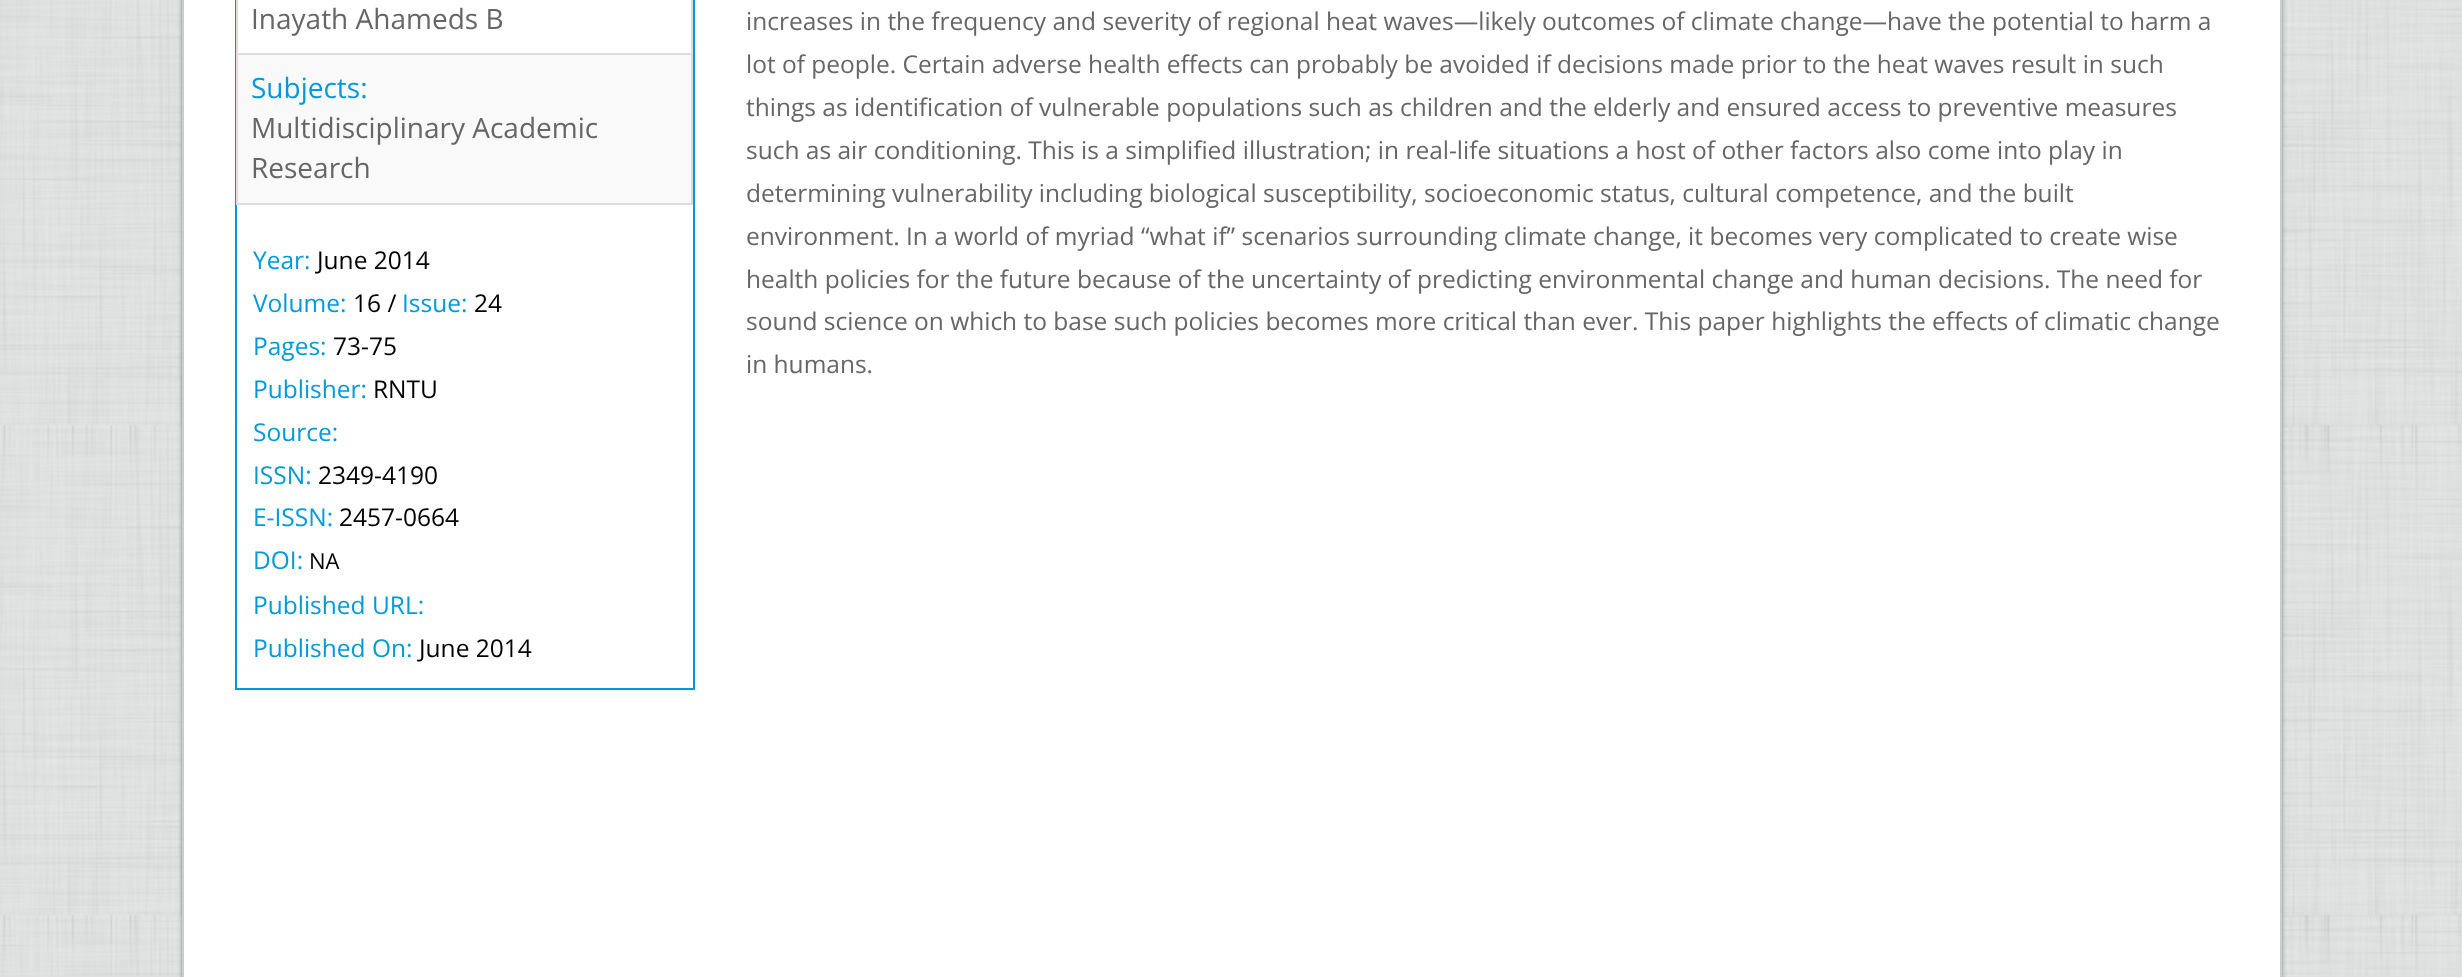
<?xml version="1.0" encoding="UTF-8"?>
<svg xmlns="http://www.w3.org/2000/svg" xmlns:xlink="http://www.w3.org/1999/xlink" width="2462" height="977">
  <rect width="100%" height="100%" fill="#ffffff" />
  <image x="0" y="0" width="2462" height="977" xlink:href="image1.png" />
  <rect x="182" y="-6" width="2100" height="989" fill="#000000" fill-opacity="0.4" filter="blur(2px)" />
  <rect x="184" width="2096" height="977" fill="#ffffff" />
  <rect x="2280" width="2" height="977" fill="#cccccc" />
  <rect x="182" width="2" height="977" fill="#cccccc" />
  <rect x="235" y="-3" width="460" height="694" fill="#000000" fill-opacity="0.05" filter="blur(1px)" />
  <rect x="236" y="-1" width="458" height="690" fill="#ffffff" stroke="#0099da" stroke-width="2" />
  <rect x="691" width="2" height="205" fill="#dddddd" />
  <rect x="236" y="203" width="457" height="2" fill="#dddddd" />
  <rect x="236" width="2" height="205" fill="#dddddd" />
  <rect x="238" y="55" width="453" height="148" fill="#f9f9f9" />
  <rect x="236" y="53" width="457" height="2" fill="#dddddd" />
  <text x="251" y="29" style="font-family: Open Sans; font-size: 28px; fill: #666666">Inayath Ahameds B</text>
  <text x="251" y="98" style="font-family: Open Sans; font-size: 28px; fill: #0099da">Subjects:</text>
  <text x="251" y="138" style="font-family: Open Sans; font-size: 28px; fill: #666666">Multidisciplinary Academic</text>
  <text x="251" y="178" style="font-family: Open Sans; font-size: 28px; fill: #666666">Research</text>
  <text x="253" y="269" style="font-family: Open Sans; font-size: 24.5px; fill: #0099da">Year:</text>
  <text x="317" y="269" style="font-family: Open Sans; font-size: 24.5px; fill: #000000">June 2014</text>
  <text x="253" y="312" style="font-family: Open Sans; font-size: 24.5px; fill: #0099da">Volume:</text>
  <text x="353" y="312" style="font-family: Open Sans; font-size: 24.5px; fill: #000000">16 /</text>
  <text x="402" y="312" style="font-family: Open Sans; font-size: 24.5px; fill: #0099da">Issue:</text>
  <text x="474" y="312" style="font-family: Open Sans; font-size: 24.5px; fill: #000000">24</text>
  <text x="253" y="355" style="font-family: Open Sans; font-size: 24.5px; fill: #0099da">Pages:</text>
  <text x="333" y="355" style="font-family: Open Sans; font-size: 24.5px; fill: #000000">73-75</text>
  <text x="253" y="398" style="font-family: Open Sans; font-size: 24.5px; fill: #0099da">Publisher:</text>
  <text x="373" y="398" style="font-family: Open Sans; font-size: 24.5px; fill: #000000">RNTU</text>
  <text x="253" y="441" style="font-family: Open Sans; font-size: 24.5px; fill: #0099da">Source:</text>
  <text x="253" y="484" style="font-family: Open Sans; font-size: 24.5px; fill: #0099da">ISSN:</text>
  <text x="318" y="484" style="font-family: Open Sans; font-size: 24.5px; fill: #000000">2349-4190</text>
  <text x="253" y="526" style="font-family: Open Sans; font-size: 24.5px; fill: #0099da">E-ISSN:</text>
  <text x="339" y="526" style="font-family: Open Sans; font-size: 24.5px; fill: #000000">2457-0664</text>
  <text x="253" y="569" style="font-family: Open Sans; font-size: 24.5px; fill: #0099da">DOI:</text>
  <text x="309" y="569" style="font-family: Open Sans; font-size: 22px; fill: #000000">NA</text>
  <text x="253" y="614" style="font-family: Open Sans; font-size: 24.5px; fill: #0099da">Published URL:</text>
  <text x="253" y="657" style="font-family: Open Sans; font-size: 24.5px; fill: #0099da">Published On:</text>
  <text x="419" y="657" style="font-family: Open Sans; font-size: 24.5px; fill: #000000">June 2014</text>
  <text x="746" y="30" style="font-family: Open Sans; font-size: 24.5px; fill: #666666">increases in the frequency and severity of regional heat waves—likely outcomes of climate change—have the potential to harm a</text>
  <text x="746" y="73" style="font-family: Open Sans; font-size: 24.5px; fill: #666666">lot of people. Certain adverse health effects can probably be avoided if decisions made prior to the heat waves result in such</text>
  <text x="746" y="116" style="font-family: Open Sans; font-size: 24.5px; fill: #666666">things as identification of vulnerable populations such as children and the elderly and ensured access to preventive measures</text>
  <text x="746" y="159" style="font-family: Open Sans; font-size: 24.5px; fill: #666666">such as air conditioning. This is a simplified illustration; in real-life situations a host of other factors also come into play in</text>
  <text x="746" y="202" style="font-family: Open Sans; font-size: 24.5px; fill: #666666">determining vulnerability including biological susceptibility, socioeconomic status, cultural competence, and the built</text>
  <text x="746" y="245" style="font-family: Open Sans; font-size: 24.5px; fill: #666666">environment. In a world of myriad “what if” scenarios surrounding climate change, it becomes very complicated to create wise</text>
  <text x="746" y="288" style="font-family: Open Sans; font-size: 24.5px; fill: #666666">health policies for the future because of the uncertainty of predicting environmental change and human decisions. The need for</text>
  <text x="746" y="330" style="font-family: Open Sans; font-size: 24.5px; fill: #666666">sound science on which to base such policies becomes more critical than ever. This paper highlights the effects of climatic change</text>
  <text x="746" y="373" style="font-family: Open Sans; font-size: 24.5px; fill: #666666">in humans.</text>
</svg>
